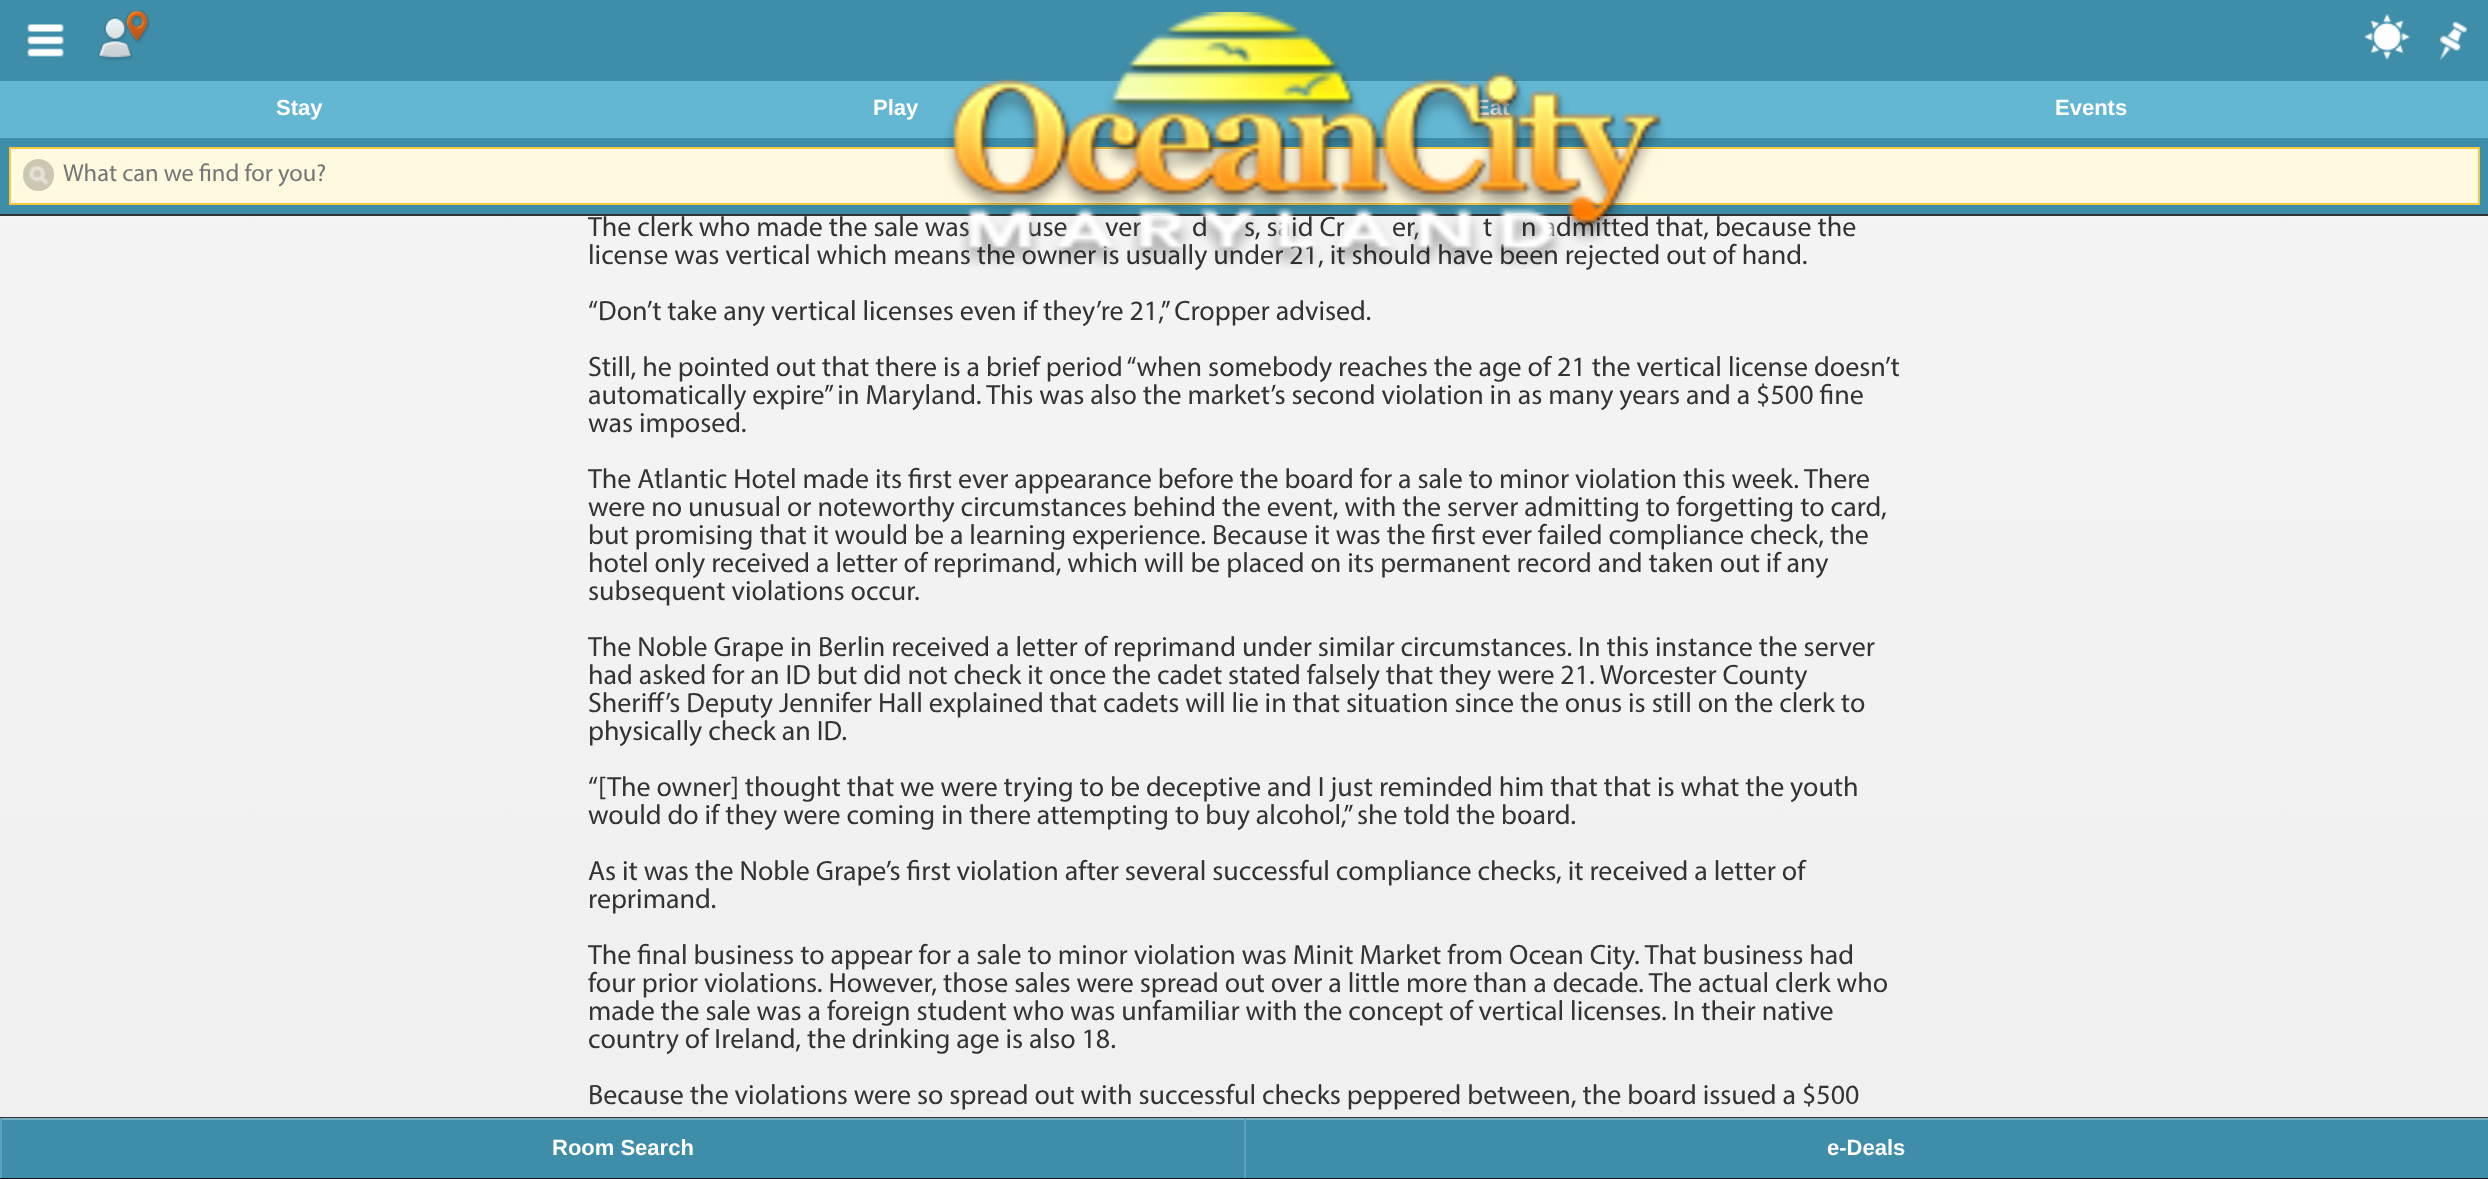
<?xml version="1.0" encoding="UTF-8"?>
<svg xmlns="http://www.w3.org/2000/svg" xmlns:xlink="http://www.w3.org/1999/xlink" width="2488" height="1179">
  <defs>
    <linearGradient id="g1" gradientUnits="userSpaceOnUse" x1="1244" y1="-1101" x2="1244" y2="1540"><stop offset="0" stop-color="#f9f9f9" /><stop offset="1" stop-color="#eeeeee" /></linearGradient>
    <linearGradient id="g2" gradientUnits="userSpaceOnUse" x1="1244" y1="1118" x2="1244" y2="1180"><stop offset="0" stop-color="#3c3c3c" /><stop offset="1" stop-color="#111111" /></linearGradient>
  </defs>
  <rect width="100%" height="100%" fill="#ffffff" />
  <rect width="2488" height="214" fill="#3e8da9" />
  <rect y="214" width="2488" height="2" fill="#333333" />
  <image x="27" y="24" width="37" height="33" xlink:href="image1.png" />
  <image x="98" y="10" width="52" height="51" xlink:href="image2.png" />
  <image x="2364" y="14" width="46" height="46" xlink:href="image3.png" />
  <image x="2440" y="21" width="27" height="40" xlink:href="image4.png" />
  <rect y="81" width="2488" height="57" fill="#63b7d3" />
  <rect x="10" y="148" width="2469" height="56" fill="#fff9df" stroke="#f7c942" stroke-width="2" />
  <rect x="23" y="159" width="31" height="32" rx="15.5" fill="#ccc7b3" />
  <image x="29" y="165" width="20" height="21" xlink:href="image6.png" />
  <rect y="216" width="2488" height="901" fill="url(#g1)" />
  <rect y="1178" width="2488" height="1" fill="url(#g2)" />
  <rect y="1117" width="2488" height="1" fill="#333333" />
  <rect x="2" y="1120" width="1242" height="58" fill="#3e8da9" />
  <rect y="1118" width="2" height="60" fill="#55a3bf" />
  <rect x="2" y="1118" width="1242" height="2" fill="#78afc3" />
  <rect x="1246" y="1120" width="1242" height="58" fill="#3e8da9" />
  <rect x="1244" y="1118" width="2" height="60" fill="#55a3bf" />
  <rect x="1246" y="1118" width="1242" height="2" fill="#78afc3" />
  <text x="276" y="115" style="font-family: Liberation Sans; font-size: 22px; font-weight: bold; fill: #ffffff">Stay</text>
  <text x="873" y="115" style="font-family: Liberation Sans; font-size: 22px; font-weight: bold; fill: #ffffff">Play</text>
  <text x="1475" y="115" style="font-family: Liberation Sans; font-size: 22px; font-weight: bold; fill: #ffffff">Eat</text>
  <text x="2055" y="115" style="font-family: Liberation Sans; font-size: 22px; font-weight: bold; fill: #ffffff">Events</text>
  <text x="63" y="181" style="font-family: Myriad; font-size: 24.5px; fill: #757575">What can we find for you?</text>
  <text x="588" y="236" style="font-family: Myriad; font-size: 28px; fill: #333333">The clerk who made the sale was</text>
  <text x="1027" y="236" style="font-family: Myriad; font-size: 28px; fill: #333333">use</text>
  <text x="1105" y="236" style="font-family: Myriad; font-size: 28px; fill: #333333">ver</text>
  <text x="1192" y="236" style="font-family: Myriad; font-size: 28px; fill: #333333">d</text>
  <text x="1244" y="236" style="font-family: Myriad; font-size: 28px; fill: #333333">s, said Cr</text>
  <text x="1392" y="236" style="font-family: Myriad; font-size: 28px; fill: #333333">er,</text>
  <text x="1483" y="236" style="font-family: Myriad; font-size: 28px; fill: #333333">t</text>
  <text x="1521" y="236" style="font-family: Myriad; font-size: 28px; fill: #333333">n admitted that, because the</text>
  <text x="588" y="264" style="font-family: Myriad; font-size: 28px; fill: #333333">license was vertical which means the owner is usually under 21, it should have been rejected out of hand.</text>
  <image x="944" y="12" width="722" height="257" xlink:href="image5.png" />
  <text x="588" y="320" style="font-family: Myriad; font-size: 28px; fill: #333333">“Don’t take any vertical licenses even if they’re 21,” Cropper advised.</text>
  <text x="588" y="376" style="font-family: Myriad; font-size: 28px; fill: #333333">Still, he pointed out that there is a brief period “when somebody reaches the age of 21 the vertical license doesn’t</text>
  <text x="588" y="404" style="font-family: Myriad; font-size: 28px; fill: #333333">automatically expire” in Maryland. This was also the market’s second violation in as many years and a $500 fine</text>
  <text x="588" y="432" style="font-family: Myriad; font-size: 28px; fill: #333333">was imposed.</text>
  <text x="588" y="488" style="font-family: Myriad; font-size: 28px; fill: #333333">The Atlantic Hotel made its first ever appearance before the board for a sale to minor violation this week. There</text>
  <text x="588" y="516" style="font-family: Myriad; font-size: 28px; fill: #333333">were no unusual or noteworthy circumstances behind the event, with the server admitting to forgetting to card,</text>
  <text x="588" y="544" style="font-family: Myriad; font-size: 28px; fill: #333333">but promising that it would be a learning experience. Because it was the first ever failed compliance check, the</text>
  <text x="588" y="572" style="font-family: Myriad; font-size: 28px; fill: #333333">hotel only received a letter of reprimand, which will be placed on its permanent record and taken out if any</text>
  <text x="588" y="600" style="font-family: Myriad; font-size: 28px; fill: #333333">subsequent violations occur.</text>
  <text x="588" y="656" style="font-family: Myriad; font-size: 28px; fill: #333333">The Noble Grape in Berlin received a letter of reprimand under similar circumstances. In this instance the server</text>
  <text x="588" y="684" style="font-family: Myriad; font-size: 28px; fill: #333333">had asked for an ID but did not check it once the cadet stated falsely that they were 21. Worcester County</text>
  <text x="588" y="712" style="font-family: Myriad; font-size: 28px; fill: #333333">Sheriff’s Deputy Jennifer Hall explained that cadets will lie in that situation since the onus is still on the clerk to</text>
  <text x="588" y="740" style="font-family: Myriad; font-size: 28px; fill: #333333">physically check an ID.</text>
  <text x="588" y="796" style="font-family: Myriad; font-size: 28px; fill: #333333">“[The owner] thought that we were trying to be deceptive and I just reminded him that that is what the youth</text>
  <text x="588" y="824" style="font-family: Myriad; font-size: 28px; fill: #333333">would do if they were coming in there attempting to buy alcohol,” she told the board.</text>
  <text x="588" y="880" style="font-family: Myriad; font-size: 28px; fill: #333333">As it was the Noble Grape’s first violation after several successful compliance checks, it received a letter of</text>
  <text x="588" y="908" style="font-family: Myriad; font-size: 28px; fill: #333333">reprimand.</text>
  <text x="588" y="964" style="font-family: Myriad; font-size: 28px; fill: #333333">The final business to appear for a sale to minor violation was Minit Market from Ocean City. That business had</text>
  <text x="588" y="992" style="font-family: Myriad; font-size: 28px; fill: #333333">four prior violations. However, those sales were spread out over a little more than a decade. The actual clerk who</text>
  <text x="588" y="1020" style="font-family: Myriad; font-size: 28px; fill: #333333">made the sale was a foreign student who was unfamiliar with the concept of vertical licenses. In their native</text>
  <text x="588" y="1048" style="font-family: Myriad; font-size: 28px; fill: #333333">country of Ireland, the drinking age is also 18.</text>
  <text x="588" y="1104" style="font-family: Myriad; font-size: 28px; fill: #333333">Because the violations were so spread out with successful checks peppered between, the board issued a $500</text>
  <text x="552" y="1155" style="font-family: Liberation Sans; font-size: 22px; font-weight: bold; fill: #ffffff">Room Search</text>
  <text x="1827" y="1155" style="font-family: Liberation Sans; font-size: 22px; font-weight: bold; fill: #ffffff">e-Deals</text>
</svg>
